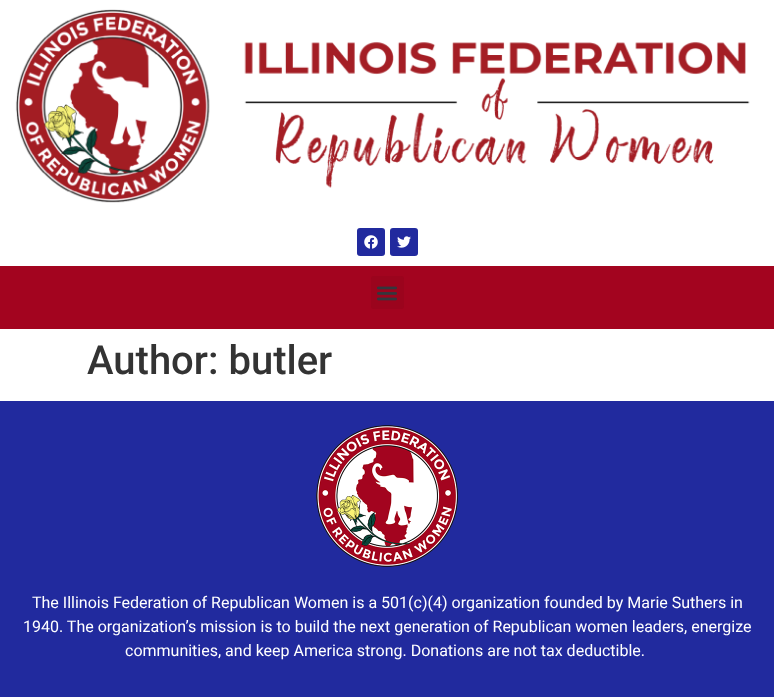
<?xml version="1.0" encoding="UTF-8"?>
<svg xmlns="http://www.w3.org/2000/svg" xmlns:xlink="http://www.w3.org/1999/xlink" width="774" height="697">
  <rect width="100%" height="100%" fill="#ffffff" />
  <image x="15" y="9" width="735" height="194" xlink:href="image1.png" />
  <rect x="357" y="228" width="28" height="28" rx="3" fill="#212a9e" />
  <image x="364" y="235" width="14" height="14" xlink:href="image2.png" />
  <rect x="390" y="228" width="28" height="28" rx="3" fill="#212a9e" />
  <image x="397" y="236" width="14" height="12" xlink:href="image3.png" />
  <rect y="266" width="774" height="63" fill="#a3041f" />
  <rect x="371" y="276" width="33" height="33" rx="3" fill="#9b041d" />
  <image x="377" y="286" width="20" height="15" xlink:href="image4.png" />
  <rect y="401" width="774" height="296" fill="#212a9e" />
  <image x="316" y="425" width="142" height="142" xlink:href="image5.png" />
  <text x="87" y="374" style="font-family: Roboto; font-size: 40px; font-weight: 500; fill: #333333">Author: butler</text>
  <text x="32" y="608" style="font-family: Roboto; font-size: 16px; fill: #ffffff">The Illinois Federation of Republican Women is a 501(c)(4) organization founded by Marie Suthers in</text>
  <text x="23" y="632" style="font-family: Roboto; font-size: 16px; fill: #ffffff">1940. The organization’s mission is to build the next generation of Republican women leaders, energize</text>
  <text x="125" y="656" style="font-family: Roboto; font-size: 16px; fill: #ffffff">communities, and keep America strong. Donations are not tax deductible.</text>
</svg>
